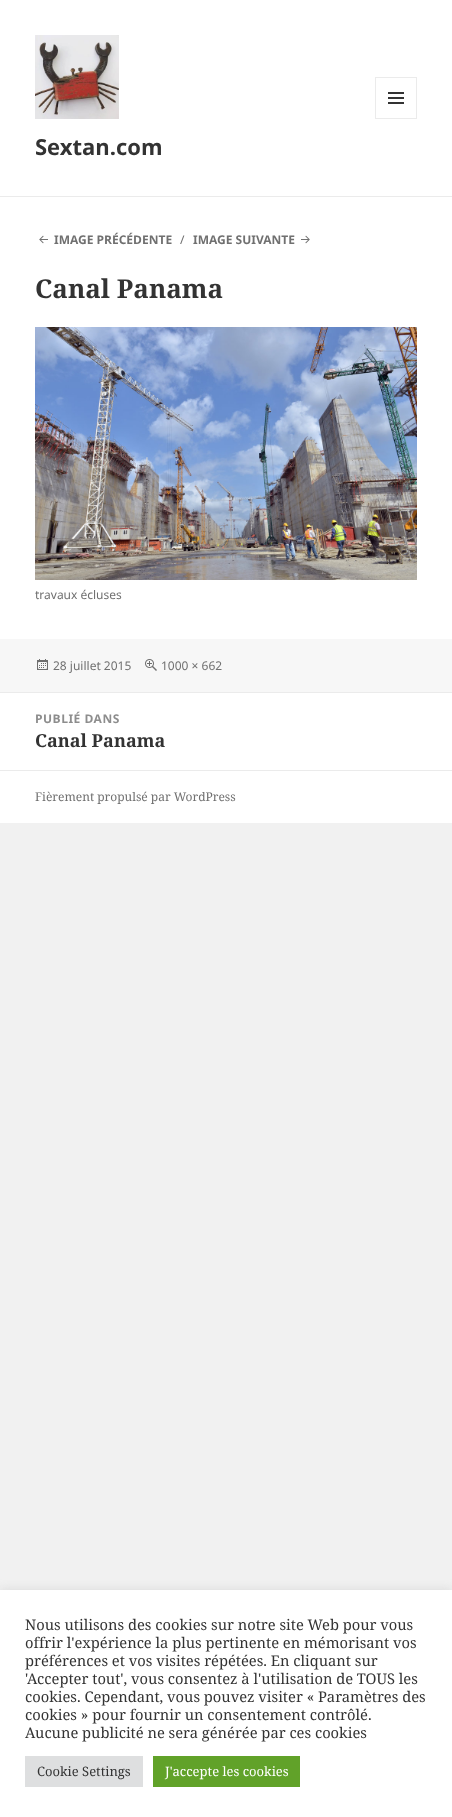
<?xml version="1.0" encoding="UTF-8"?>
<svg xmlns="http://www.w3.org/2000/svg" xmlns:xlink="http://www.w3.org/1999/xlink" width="452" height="1817">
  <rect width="100%" height="100%" fill="#f1f1f1" />
  <rect width="452" height="196" fill="#ffffff" />
  <rect y="196" width="452" height="1" fill="#ebebeb" />
  <image x="35" y="35" width="84" height="84" xlink:href="image1.png" />
  <rect x="375.5" y="77.5" width="41" height="41" fill="none" stroke="#ebebeb" />
  <image x="388" y="92" width="16" height="12" xlink:href="image2.png" />
  <rect y="197" width="452" height="442" fill="#ffffff" />
  <image x="39" y="235" width="9" height="9" xlink:href="image3.png" />
  <image x="301" y="235" width="9" height="9" xlink:href="image4.png" />
  <image x="35" y="327" width="382" height="253" xlink:href="image5.png" />
  <rect y="639" width="452" height="53" fill="#f7f7f7" />
  <image x="37" y="659" width="11" height="11" xlink:href="image6.png" />
  <image x="145" y="659" width="12" height="12" xlink:href="image7.png" />
  <rect y="693" width="452" height="77" fill="#ffffff" />
  <rect y="692" width="452" height="1" fill="#ebebeb" />
  <rect y="771" width="452" height="52" fill="#ffffff" />
  <rect y="770" width="452" height="1" fill="#ebebeb" />
  <rect y="1589" width="452" height="227" fill="#acabab" fill-opacity="0.3" filter="blur(5px)" />
  <rect y="1590" width="452" height="227" fill="#ffffff" />
  <rect x="25" y="1756" width="118" height="31" fill="#dedfe0" />
  <rect x="153" y="1756" width="147" height="31" fill="#61a229" />
  <text x="35" y="155" style="font-family: Noto Sans; font-size: 22px; font-weight: bold; fill: #333333">Sextan.com</text>
  <text x="54" y="244" style="font-family: Noto Sans; font-size: 12px; font-weight: bold; fill: #707070">IMAGE PRÉCÉDENTE</text>
  <text x="180" y="244" style="font-family: Noto Sans; font-size: 12px; fill: #707070">∕</text>
  <text x="193" y="244" style="font-family: Noto Sans; font-size: 12px; font-weight: bold; fill: #707070">IMAGE SUIVANTE</text>
  <text x="35" y="298" style="font-family: Noto Serif; font-size: 26px; font-weight: bold; fill: #333333">Canal Panama</text>
  <text x="35" y="599" style="font-family: Noto Sans; font-size: 12px; fill: #707070">travaux écluses</text>
  <text x="53" y="670" style="font-family: Noto Sans; font-size: 12px; fill: #707070">28 juillet 2015</text>
  <text x="161" y="670" style="font-family: Noto Sans; font-size: 12px; fill: #707070">1000 × 662</text>
  <text x="35" y="723" style="font-family: Noto Sans; font-size: 12px; font-weight: bold; letter-spacing: 0.5px; fill: #8d8d8d">PUBLIÉ DANS</text>
  <text x="35" y="747" style="font-family: Noto Serif; font-size: 18px; font-weight: bold; fill: #333333">Canal Panama</text>
  <text x="35" y="801" style="font-family: Noto Serif; font-size: 12px; fill: #707070">Fièrement propulsé par WordPress</text>
  <text x="25" y="1630" style="font-family: Noto Serif; font-size: 14.7px; fill: #333333">Nous utilisons des cookies sur notre site Web pour vous</text>
  <text x="25" y="1648" style="font-family: Noto Serif; font-size: 14.7px; fill: #333333">offrir l'expérience la plus pertinente en mémorisant vos</text>
  <text x="25" y="1666" style="font-family: Noto Serif; font-size: 14.7px; fill: #333333">préférences et vos visites répétées. En cliquant sur</text>
  <text x="25" y="1684" style="font-family: Noto Serif; font-size: 14.7px; fill: #333333">'Accepter tout', vous consentez à l'utilisation de TOUS les</text>
  <text x="25" y="1702" style="font-family: Noto Serif; font-size: 14.7px; fill: #333333">cookies. Cependant, vous pouvez visiter « Paramètres des</text>
  <text x="25" y="1720" style="font-family: Noto Serif; font-size: 14.7px; fill: #333333">cookies » pour fournir un consentement contrôlé.</text>
  <text x="25" y="1738" style="font-family: Noto Serif; font-size: 14.7px; fill: #333333">Aucune publicité ne sera générée par ces cookies</text>
  <text x="37" y="1776" style="font-family: Noto Serif; font-size: 13px; fill: #333333">Cookie Settings</text>
  <text x="165" y="1776" style="font-family: Noto Serif; font-size: 13px; fill: #ffffff">J'accepte les cookies</text>
</svg>
